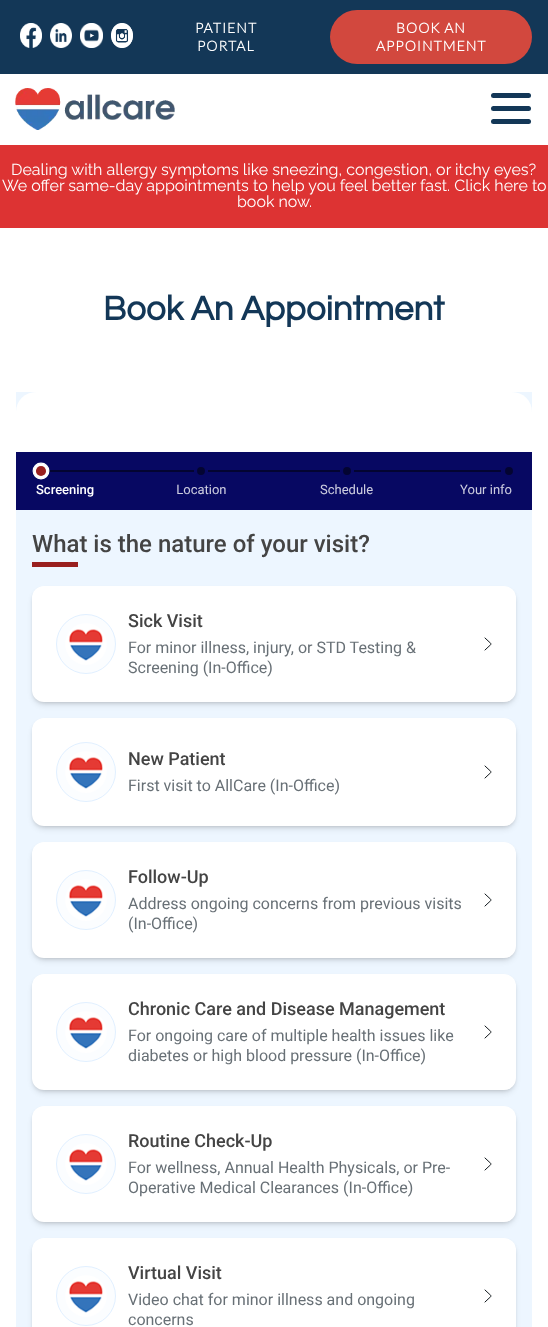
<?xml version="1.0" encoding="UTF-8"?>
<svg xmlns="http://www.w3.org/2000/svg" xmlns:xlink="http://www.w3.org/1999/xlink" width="548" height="1327">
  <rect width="100%" height="100%" fill="#ffffff" />
  <rect width="548" height="74" fill="#133757" />
  <image x="20" y="23" width="22" height="25" xlink:href="image1.png" />
  <image x="50" y="23" width="22" height="25" xlink:href="image2.png" />
  <image x="80" y="23" width="23" height="25" xlink:href="image3.png" />
  <image x="111" y="23" width="22" height="25" xlink:href="image4.png" />
  <rect x="330" y="10" width="202" height="54" rx="27" fill="#d2483e" />
  <image x="15" y="88" width="160" height="42" xlink:href="image5.png" />
  <rect x="491" y="93" width="40" height="5" rx="2.5" fill="#133757" />
  <rect x="491" y="106" width="40" height="5" rx="2.5" fill="#133757" />
  <rect x="491" y="119" width="40" height="5" rx="2.5" fill="#133757" />
  <rect y="145" width="548" height="83" fill="#dd3333" />
  <rect x="16" y="392" width="516" height="19" fill="#edf6ff" />
  <image x="16" y="392" width="516" height="935" xlink:href="image6.png" />
  <text x="195" y="33" style="font-family: Lato; font-size: 14px; font-weight: bold; letter-spacing: 1px; fill: #ffffff">PATIENT</text>
  <text x="197" y="51" style="font-family: Lato; font-size: 14px; font-weight: bold; letter-spacing: 1px; fill: #ffffff">PORTAL</text>
  <text x="396" y="33" style="font-family: Lato; font-size: 14px; font-weight: bold; letter-spacing: 1px; fill: #ffffff">BOOK AN</text>
  <text x="376" y="51" style="font-family: Lato; font-size: 14px; font-weight: bold; letter-spacing: 1px; fill: #ffffff">APPOINTMENT</text>
  <text x="11" y="175" style="font-family: Raleway; font-size: 16px; fill: #ffffff">Dealing with allergy symptoms like sneezing, congestion, or itchy eyes?</text>
  <text x="2" y="191" style="font-family: Raleway; font-size: 16px; fill: #ffffff">We offer same-day appointments to help you feel better fast. Click here to</text>
  <text x="237" y="207" style="font-family: Raleway; font-size: 16px; fill: #ffffff">book now.</text>
  <text x="103" y="320" style="font-family: Questrial; font-size: 35px; font-weight: bold; fill: #133757">Book An Appointment</text>
</svg>
